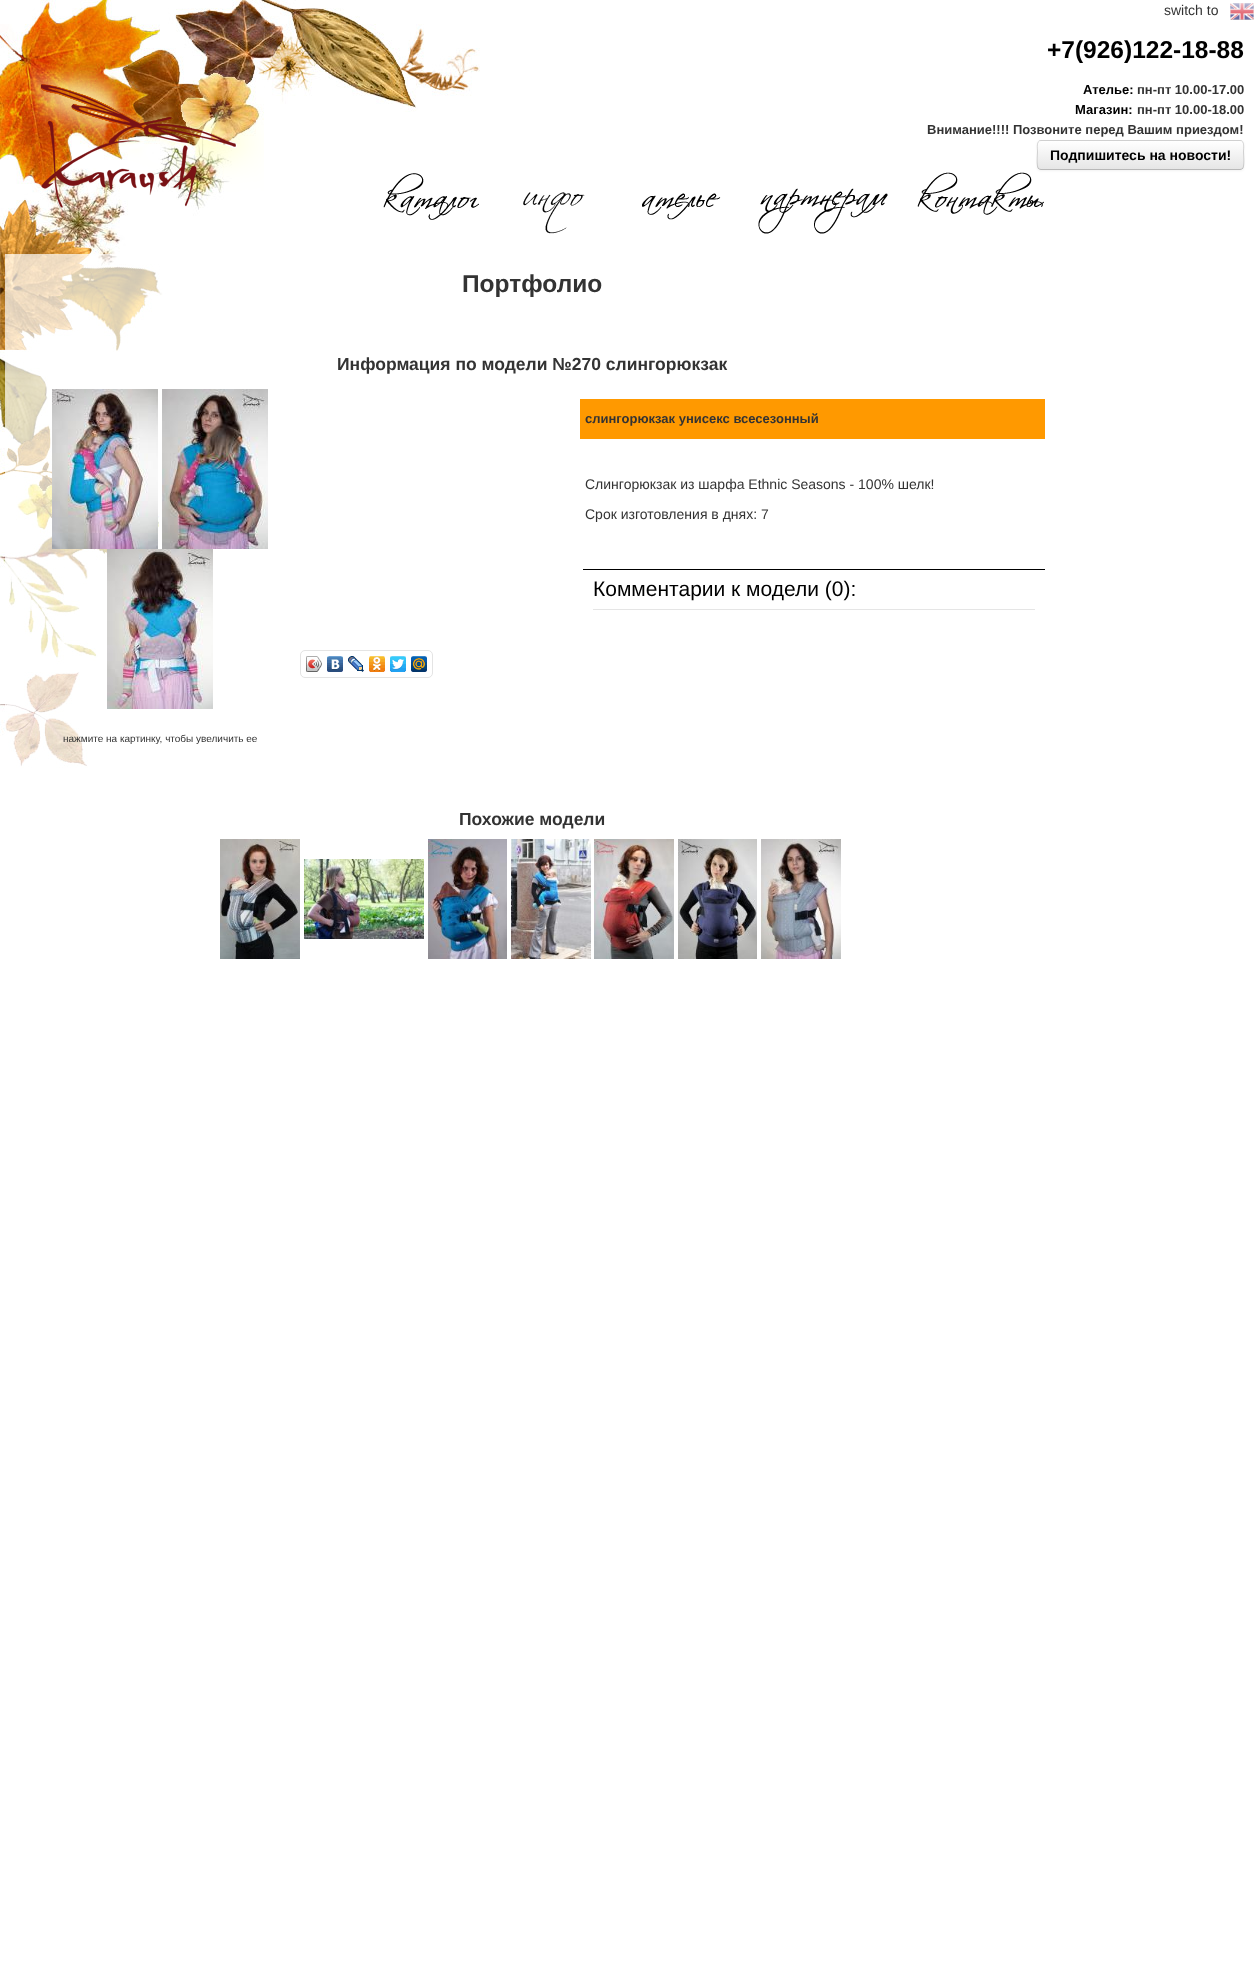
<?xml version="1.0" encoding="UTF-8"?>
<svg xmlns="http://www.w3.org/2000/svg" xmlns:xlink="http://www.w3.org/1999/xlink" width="1254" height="1967">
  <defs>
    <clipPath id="clip1"><rect x="1037" y="140" width="207" height="30" rx="4" /></clipPath>
    <linearGradient id="g1" gradientUnits="userSpaceOnUse" x1="1141" y1="141" x2="1141" y2="169"><stop offset="0" stop-color="#ffffff" /><stop offset="1" stop-color="#e6e6e6" /></linearGradient>
  </defs>
  <rect width="100%" height="100%" fill="#ffffff" />
  <image x="0" y="0" width="480" height="768" xlink:href="image1.png" />
  <image x="30" y="65" width="234" height="143" xlink:href="image2.png" />
  <image x="383" y="173" width="96" height="47" xlink:href="image3.png" />
  <image x="523" y="192" width="62" height="42" xlink:href="image4.png" />
  <image x="642" y="193" width="79" height="27" xlink:href="image5.png" />
  <image x="758" y="188" width="130" height="46" xlink:href="image6.png" />
  <rect x="1037" y="141" width="207" height="30" rx="4" fill="#000000" fill-opacity="0.05" filter="blur(1px)" />
  <image x="917" y="172" width="127" height="43" xlink:href="image7.png" />
  <image x="1230" y="3" width="24" height="17" xlink:href="image8.png" />
  <rect x="1037" y="140" width="207" height="30" rx="4" fill="#f5f5f5" />
  <g clip-path="url(#clip1)">
    <rect x="1037" y="141" width="207" height="28" fill="url(#g1)" />
  </g>
  <path d="M 1242.5 168.5 c -0.5 0.5 -1.5 1 -2.5 1 h -199 c -1 0 -2 -0.5 -2.5 -1" fill="none" stroke="#b8b8b8" />
  <path d="M 1038.5 168.5 c -2.5 -2.5 -1 -14 -1 -17 c 0 -3 -1.5 -11 3.5 -11 h 199 c 5 0 3.5 8 3.5 11 c 0 3 1.5 14.5 -1 17" fill="none" stroke="#000000" stroke-opacity="0.15" />
  <rect x="5" y="254" width="163" height="514" fill="#ffffff" fill-opacity="0.7" />
  <rect x="580" y="399" width="465" height="40" fill="#ff9900" />
  <rect x="583" y="569" width="462" height="1" fill="#000000" />
  <rect x="593" y="609" width="442" height="1" fill="#e5e5e5" />
  <rect x="300.5" y="650.5" width="132" height="27" rx="4.5" fill="none" stroke="#e4e4e4" />
  <image x="306" y="656" width="16" height="16" xlink:href="image9.png" />
  <image x="306" y="656" width="16" height="16" xlink:href="image10.png" />
  <image x="327" y="656" width="16" height="16" xlink:href="image11.png" />
  <image x="348" y="656" width="16" height="16" xlink:href="image12.png" />
  <image x="369" y="656" width="16" height="16" xlink:href="image13.png" />
  <image x="390" y="656" width="16" height="16" xlink:href="image14.png" />
  <image x="411" y="656" width="16" height="16" xlink:href="image15.png" />
  <image x="52" y="389" width="106" height="160" xlink:href="image16.png" />
  <image x="162" y="389" width="106" height="160" xlink:href="image17.png" />
  <image x="107" y="549" width="106" height="160" xlink:href="image18.png" />
  <image x="220" y="839" width="80" height="120" xlink:href="image19.png" />
  <image x="304" y="859" width="120" height="80" xlink:href="image20.png" />
  <image x="428" y="839" width="79" height="120" xlink:href="image21.png" />
  <image x="511" y="839" width="80" height="120" xlink:href="image22.png" />
  <image x="594" y="839" width="80" height="120" xlink:href="image23.png" />
  <image x="678" y="839" width="79" height="120" xlink:href="image24.png" />
  <image x="761" y="839" width="80" height="120" xlink:href="image25.png" />
  <text x="1164" y="15" style="font-family: Liberation Sans; font-size: 14px; fill: #333333">switch to</text>
  <text x="1047" y="58" style="font-family: Liberation Sans; font-size: 24.5px; font-weight: bold; fill: #000000">+7(926)122-18-88</text>
  <text x="1083" y="94" style="font-family: Liberation Sans; font-size: 13px; font-weight: bold; fill: #000000">Ателье:</text>
  <text x="1137" y="94" style="font-family: Liberation Sans; font-size: 13px; font-weight: bold; fill: #333333">пн-пт 10.00-17.00</text>
  <text x="1075" y="114" style="font-family: Liberation Sans; font-size: 13px; font-weight: bold; fill: #000000">Магазин:</text>
  <text x="1137" y="114" style="font-family: Liberation Sans; font-size: 13px; font-weight: bold; fill: #333333">пн-пт 10.00-18.00</text>
  <text x="927" y="134" style="font-family: Liberation Sans; font-size: 13px; font-weight: bold; fill: #333333">Внимание!!!! Позвоните перед Вашим приездом!</text>
  <text x="1050" y="160" style="font-family: Liberation Sans; font-size: 14px; font-weight: bold; fill: #000000">Подпишитесь на новости!</text>
  <text x="462" y="292" style="font-family: Liberation Sans; font-size: 24.5px; font-weight: bold; fill: #333333">Портфолио</text>
  <text x="337" y="370" style="font-family: Liberation Sans; font-size: 17.5px; font-weight: bold; fill: #333333">Информация по модели №270 слингорюкзак</text>
  <text x="585" y="423" style="font-family: Liberation Sans; font-size: 13px; font-weight: bold; fill: #333333">слингорюкзак унисекс всесезонный</text>
  <text x="585" y="489" style="font-family: Liberation Sans; font-size: 14px; fill: #333333">Слингорюкзак из шарфа Ethnic Seasons - 100% шелк!</text>
  <text x="585" y="519" style="font-family: Liberation Sans; font-size: 14px; fill: #333333">Срок изготовления в днях: 7</text>
  <text x="593" y="596" style="font-family: Liberation Sans; font-size: 21px; fill: #000000">Комментарии к модели (0):</text>
  <text x="63" y="742" style="font-family: Liberation Sans; font-size: 10px; fill: #333333">нажмите на картинку, чтобы увеличить ее</text>
  <text x="459" y="825" style="font-family: Liberation Sans; font-size: 17.5px; font-weight: bold; fill: #333333">Похожие модели</text>
</svg>
